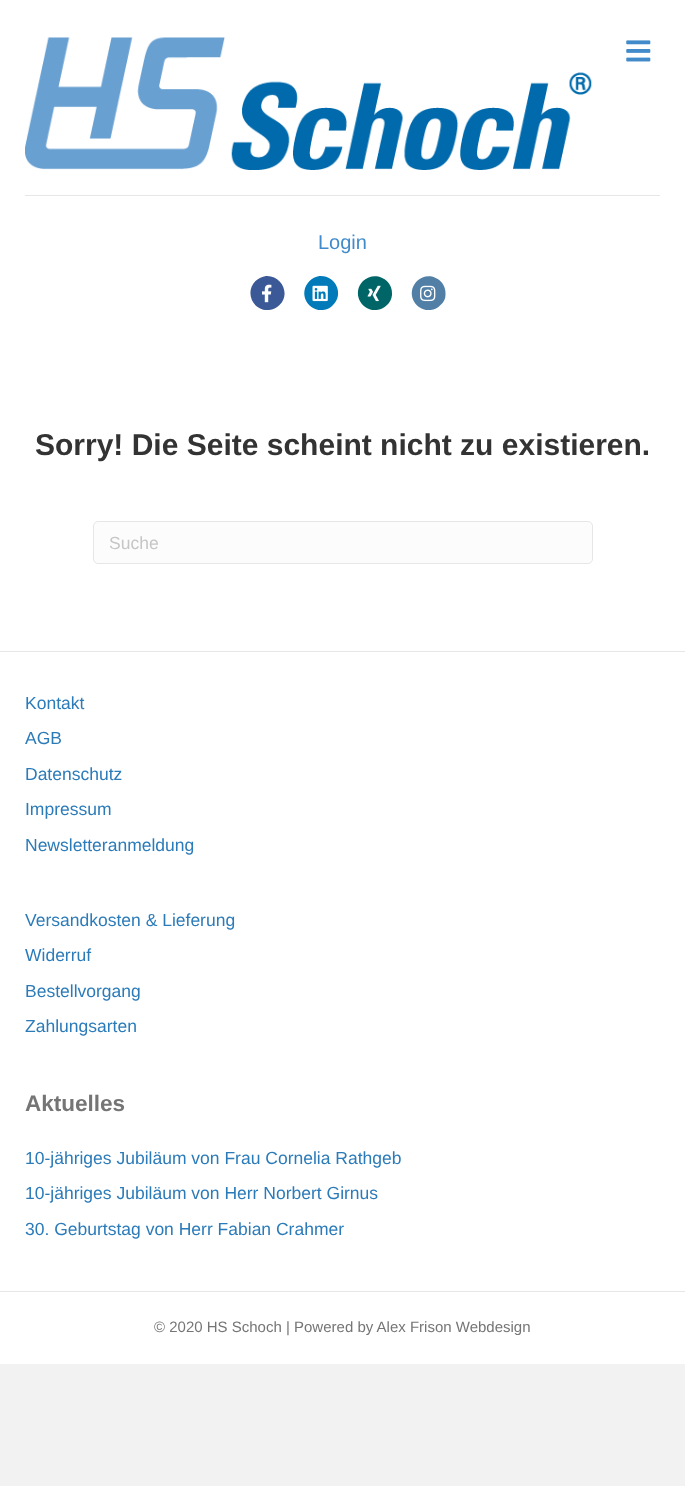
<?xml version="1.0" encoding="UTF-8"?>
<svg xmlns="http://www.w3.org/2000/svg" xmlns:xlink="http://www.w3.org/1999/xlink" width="685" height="1486">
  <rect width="100%" height="100%" fill="#f2f2f2" />
  <rect width="685" height="651" fill="#ffffff" />
  <image x="626" y="40" width="25" height="22" xlink:href="image1.png" />
  <image x="25" y="37" width="567" height="133" xlink:href="image2.png" />
  <rect x="25" y="195" width="635" height="1" fill="#e6e6e6" />
  <path d="M 255.5 281 c 3 -2.5 6.5 -4.5 10.5 -5 c 15.5 -1 25 18 13.5 29 c -3 3 -6.5 4.5 -10.5 5 c -15.5 1.5 -25 -17.5 -13.5 -29 z" fill="#3b5997" />
  <image x="262" y="284" width="10" height="19" xlink:href="image3.png" />
  <path d="M 309.5 281 c 2.5 -2.5 6 -4.5 10 -5 c 16 -1 25 18 13.5 29 c -2.5 3 -6 4.5 -10 5 c -16 1.5 -25 -17.5 -13.5 -29 z" fill="#007ab8" />
  <image x="312" y="285" width="16" height="17" xlink:href="image4.png" />
  <path d="M 363 281 c 11.5 -11 30.5 -2 29 14 c -0.5 4 -2 7.5 -5 10 c -3 3 -6.5 4.5 -10.5 5 c -15.5 1.5 -25 -17.5 -13.5 -29 z" fill="#006567" />
  <image x="367" y="285" width="14" height="17" xlink:href="image5.png" />
  <path d="M 417 281 c 11 -11 30 -2 28.5 14 c 0 4 -2 7.5 -5 10 c -2.5 3 -6 4.5 -10 5 c -16 1.5 -25 -17.5 -13.5 -29 z" fill="#517fa5" />
  <image x="420" y="285" width="16" height="17" xlink:href="image6.png" />
  <rect x="93.5" y="521.5" width="499" height="42" rx="4.5" fill="#fcfcfc" stroke="#e6e6e6" />
  <rect y="652" width="685" height="639" fill="#ffffff" />
  <rect y="651" width="685" height="1" fill="#e6e6e6" />
  <rect y="1292" width="685" height="72" fill="#ffffff" />
  <rect y="1291" width="685" height="1" fill="#e6e6e6" />
  <text x="318" y="249" style="font-family: Liberation Sans; font-size: 20px; fill: #428bca">Login</text>
  <text x="35" y="455" style="font-family: Liberation Sans; font-size: 30px; font-weight: bold; fill: #333333">Sorry! Die Seite scheint nicht zu existieren.</text>
  <text x="109" y="549" style="font-family: Liberation Sans; font-size: 17.5px; fill: #c6c6c6">Suche</text>
  <text x="25" y="709" style="font-family: Liberation Sans; font-size: 17.5px; fill: #2b7bb9">Kontakt</text>
  <text x="25" y="744" style="font-family: Liberation Sans; font-size: 17.5px; fill: #2b7bb9">AGB</text>
  <text x="25" y="780" style="font-family: Liberation Sans; font-size: 17.5px; fill: #2b7bb9">Datenschutz</text>
  <text x="25" y="815" style="font-family: Liberation Sans; font-size: 17.5px; fill: #2b7bb9">Impressum</text>
  <text x="25" y="851" style="font-family: Liberation Sans; font-size: 17.5px; fill: #2b7bb9">Newsletteranmeldung</text>
  <text x="25" y="926" style="font-family: Liberation Sans; font-size: 17.5px; fill: #2b7bb9">Versandkosten &amp; Lieferung</text>
  <text x="25" y="961" style="font-family: Liberation Sans; font-size: 17.5px; fill: #2b7bb9">Widerruf</text>
  <text x="25" y="997" style="font-family: Liberation Sans; font-size: 17.5px; fill: #2b7bb9">Bestellvorgang</text>
  <text x="25" y="1032" style="font-family: Liberation Sans; font-size: 17.5px; fill: #2b7bb9">Zahlungsarten</text>
  <text x="25" y="1111" style="font-family: Liberation Sans; font-size: 22.5px; font-weight: bold; fill: #757575">Aktuelles</text>
  <text x="25" y="1164" style="font-family: Liberation Sans; font-size: 17.5px; fill: #2b7bb9">10-jähriges Jubiläum von Frau Cornelia Rathgeb</text>
  <text x="25" y="1199" style="font-family: Liberation Sans; font-size: 17.5px; fill: #2b7bb9">10-jähriges Jubiläum von Herr Norbert Girnus</text>
  <text x="25" y="1235" style="font-family: Liberation Sans; font-size: 17.5px; fill: #2b7bb9">30. Geburtstag von Herr Fabian Crahmer</text>
  <text x="154" y="1332" style="font-family: Liberation Sans; font-size: 15px; fill: #757575">© 2020 HS Schoch | Powered by Alex Frison Webdesign</text>
</svg>
